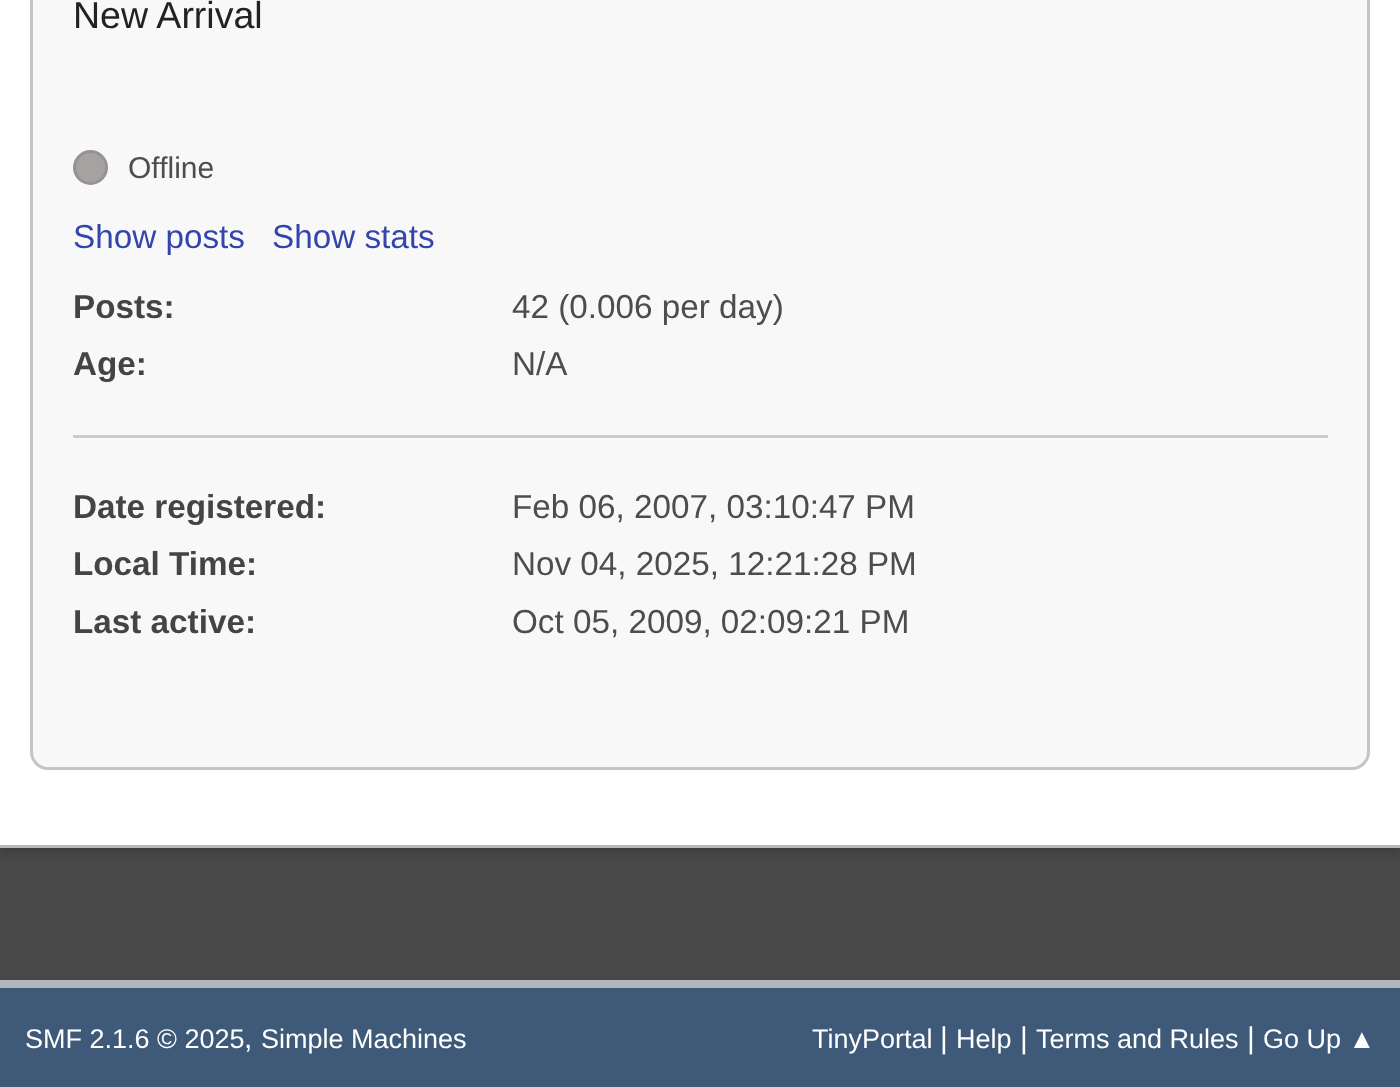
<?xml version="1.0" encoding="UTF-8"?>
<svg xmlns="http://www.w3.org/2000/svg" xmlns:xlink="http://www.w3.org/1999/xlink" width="1400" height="1087">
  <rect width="100%" height="100%" fill="#484848" />
  <rect y="-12" width="1400" height="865" fill="#000000" fill-opacity="0.14" filter="blur(4px)" />
  <rect width="1400" height="845" fill="#ffffff" />
  <rect y="845" width="1400" height="3" fill="#b8b8b8" />
  <path d="M 31.5 -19.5 h 1337 v 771.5 c 0 9 -7.5 16.5 -16.5 16.5 h -1304 c -9 0 -16.5 -7.5 -16.5 -16.5 z" fill="#f8f8f8" stroke="#c5c5c5" stroke-width="3" />
  <circle cx="90.5" cy="167.5" r="16" fill="#a7a2a2" stroke="#969292" stroke-width="3" />
  <rect x="73" y="435" width="1255" height="3" fill="#cccccc" />
  <rect y="988" width="1400" height="99" fill="#3e5a78" />
  <rect y="980" width="1400" height="8" fill="#b2b6bd" />
  <text x="73" y="28" style="font-family: Liberation Sans; font-size: 37.5px; fill: #222222">New Arrival</text>
  <text x="128" y="178" style="font-family: Liberation Sans; font-size: 30px; fill: #4d4d4d">Offline</text>
  <text x="73" y="248" style="font-family: Liberation Sans; font-size: 33.25px; fill: #3344aa">Show posts</text>
  <text x="272" y="248" style="font-family: Liberation Sans; font-size: 33.25px; fill: #3344aa">Show stats</text>
  <text x="73" y="318" style="font-family: Liberation Sans; font-size: 33.25px; font-weight: bold; fill: #444444">Posts:</text>
  <text x="512" y="318" style="font-family: Liberation Sans; font-size: 33.25px; fill: #4d4d4d">42 (0.006 per day)</text>
  <text x="73" y="375" style="font-family: Liberation Sans; font-size: 33.25px; font-weight: bold; fill: #444444">Age:</text>
  <text x="512" y="375" style="font-family: Liberation Sans; font-size: 33.25px; fill: #4d4d4d">N/A</text>
  <text x="73" y="518" style="font-family: Liberation Sans; font-size: 33.25px; font-weight: bold; fill: #444444">Date registered:</text>
  <text x="512" y="518" style="font-family: Liberation Sans; font-size: 33.25px; fill: #4d4d4d">Feb 06, 2007, 03:10:47 PM</text>
  <text x="73" y="575" style="font-family: Liberation Sans; font-size: 33.25px; font-weight: bold; fill: #444444">Local Time:</text>
  <text x="512" y="575" style="font-family: Liberation Sans; font-size: 33.25px; fill: #4d4d4d">Nov 04, 2025, 12:21:28 PM</text>
  <text x="73" y="633" style="font-family: Liberation Sans; font-size: 33.25px; font-weight: bold; fill: #444444">Last active:</text>
  <text x="512" y="633" style="font-family: Liberation Sans; font-size: 33.25px; fill: #4d4d4d">Oct 05, 2009, 02:09:21 PM</text>
  <text x="25" y="1048" style="font-family: Liberation Sans; font-size: 27px; fill: #ffffff">SMF 2.1.6 © 2025</text>
  <text x="244" y="1048" style="font-family: Liberation Sans; font-size: 30px; fill: #ffffff">,</text>
  <text x="261" y="1048" style="font-family: Liberation Sans; font-size: 27px; fill: #ffffff">Simple Machines</text>
  <text x="812" y="1048" style="font-family: Liberation Sans; font-size: 27px; fill: #ffffff">TinyPortal</text>
  <text x="940" y="1048" style="font-family: Liberation Sans; font-size: 30px; fill: #ffffff">|</text>
  <text x="956" y="1048" style="font-family: Liberation Sans; font-size: 27px; fill: #ffffff">Help</text>
  <text x="1020" y="1048" style="font-family: Liberation Sans; font-size: 30px; fill: #ffffff">|</text>
  <text x="1036" y="1048" style="font-family: Liberation Sans; font-size: 27px; fill: #ffffff">Terms and Rules</text>
  <text x="1247" y="1048" style="font-family: Liberation Sans; font-size: 30px; fill: #ffffff">|</text>
  <text x="1263" y="1048" style="font-family: Liberation Sans; font-size: 27px; fill: #ffffff">Go Up ▲</text>
</svg>
